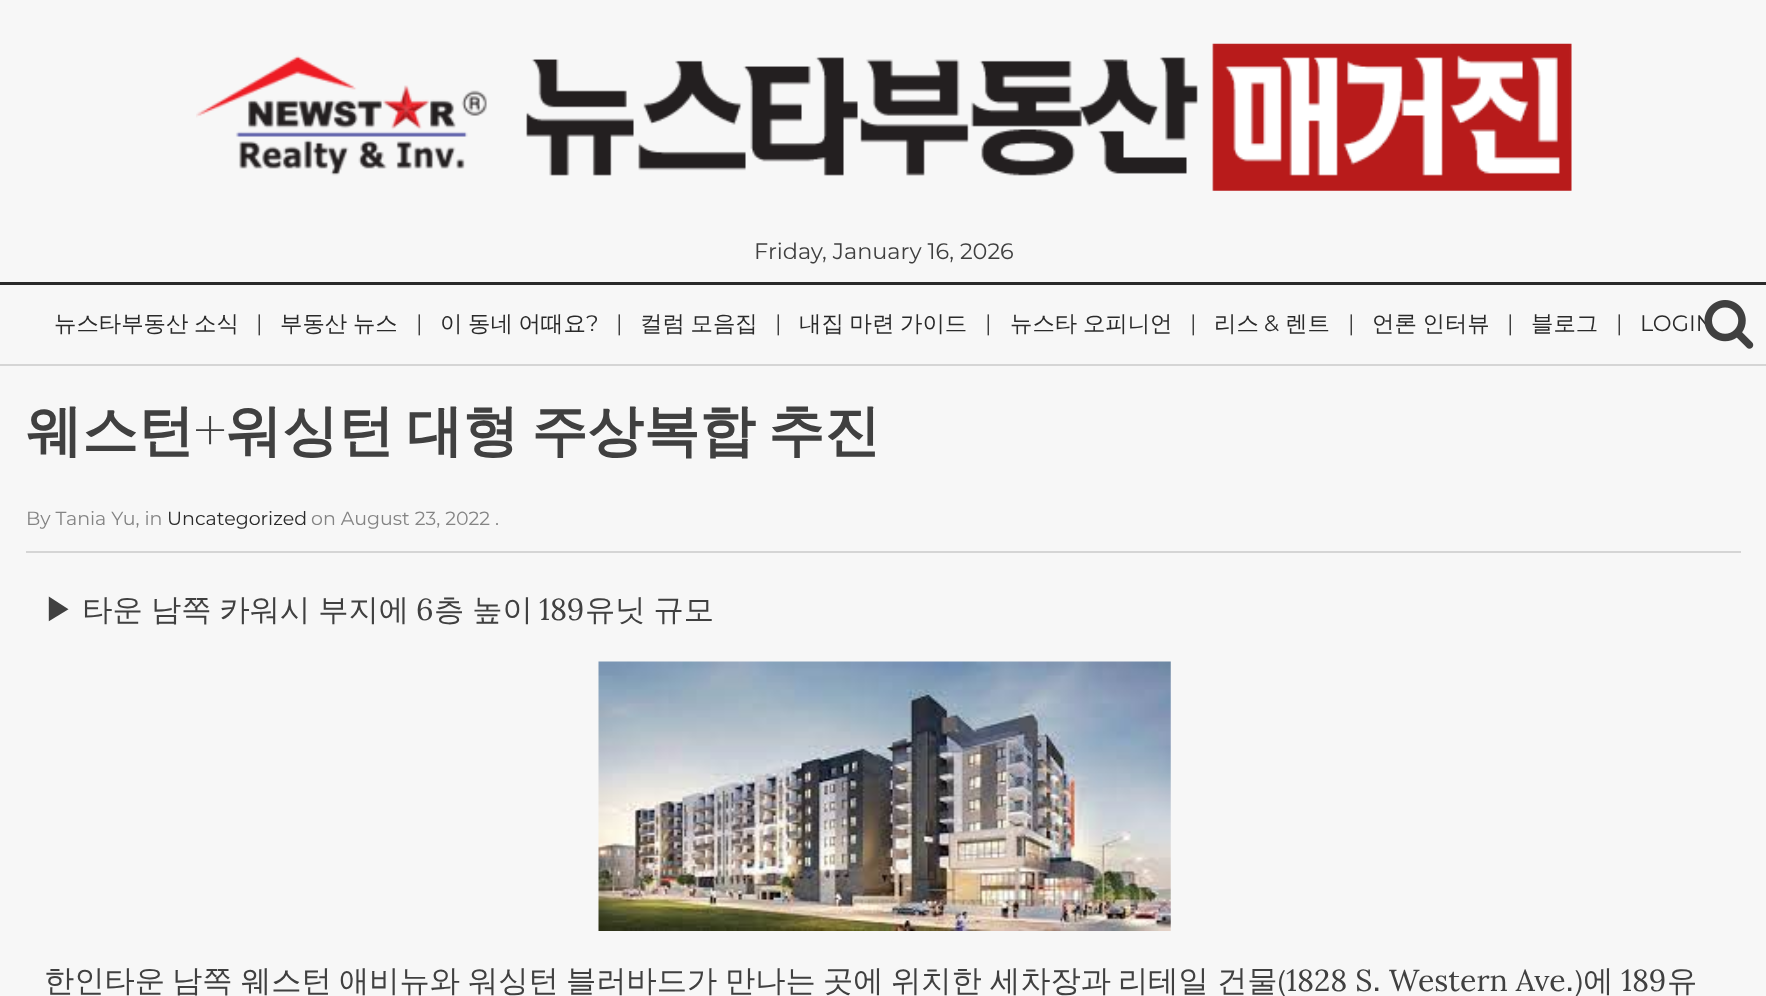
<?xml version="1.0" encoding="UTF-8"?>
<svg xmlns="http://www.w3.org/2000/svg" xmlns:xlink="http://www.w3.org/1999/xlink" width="1766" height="996">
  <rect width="100%" height="100%" fill="#f7f7f7" />
  <image x="196" y="43" width="1376" height="148" xlink:href="image1.png" />
  <path d="M 0 282 v 3 h 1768 v 77 v -80 z" fill="#2a2a2a" />
  <rect y="364" width="1766" height="2" fill="#d5d5d5" />
  <rect x="26" y="551" width="1715" height="2" fill="#d5d5d5" />
  <image x="598" y="661" width="573" height="270" xlink:href="image3.png" />
  <text x="754" y="259" style="font-family: Montserrat; font-size: 22.4px; font-weight: 100; fill: #404040">Friday, January 16, 2026</text>
  <text x="54" y="331" word-spacing="-1" style="font-family: WenQuanYi Zen Hei; font-size: 22.4px; font-weight: 500; fill: #2a2a2a">뉴스타부동산 소식</text>
  <text x="256" y="331" style="font-family: Montserrat; font-size: 22.4px; font-weight: 100; fill: #404040">|</text>
  <text x="280" y="331" word-spacing="-1" style="font-family: WenQuanYi Zen Hei; font-size: 22.4px; font-weight: 500; fill: #2a2a2a">부동산 뉴스</text>
  <text x="416" y="331" style="font-family: Montserrat; font-size: 22.4px; font-weight: 100; fill: #404040">|</text>
  <text x="440" y="331" word-spacing="-1" style="font-family: WenQuanYi Zen Hei; font-size: 22.4px; font-weight: 500; fill: #2a2a2a">이 동네 어때요</text>
  <text x="586" y="331" style="font-family: Montserrat; font-size: 22.4px; font-weight: 100; fill: #2a2a2a">?</text>
  <text x="616" y="331" style="font-family: Montserrat; font-size: 22.4px; font-weight: 100; fill: #404040">|</text>
  <text x="640" y="331" word-spacing="-1" style="font-family: WenQuanYi Zen Hei; font-size: 22.4px; font-weight: 500; fill: #2a2a2a">컬럼 모음집</text>
  <text x="775" y="331" style="font-family: Montserrat; font-size: 22.4px; font-weight: 100; fill: #404040">|</text>
  <text x="799" y="331" word-spacing="-1" style="font-family: WenQuanYi Zen Hei; font-size: 22.4px; font-weight: 500; fill: #2a2a2a">내집 마련 가이드</text>
  <text x="985" y="331" style="font-family: Montserrat; font-size: 22.4px; font-weight: 100; fill: #404040">|</text>
  <text x="1010" y="331" word-spacing="-1" style="font-family: WenQuanYi Zen Hei; font-size: 22.4px; font-weight: 500; fill: #2a2a2a">뉴스타 오피니언</text>
  <text x="1190" y="331" style="font-family: Montserrat; font-size: 22.4px; font-weight: 100; fill: #404040">|</text>
  <text x="1214" y="331" style="font-family: WenQuanYi Zen Hei; font-size: 22.4px; font-weight: 500; fill: #2a2a2a">리스</text>
  <text x="1264" y="331" style="font-family: Montserrat; font-size: 22.4px; font-weight: 100; fill: #2a2a2a">&amp;</text>
  <text x="1285" y="331" style="font-family: WenQuanYi Zen Hei; font-size: 22.4px; font-weight: 500; fill: #2a2a2a">렌트</text>
  <text x="1348" y="331" style="font-family: Montserrat; font-size: 22.4px; font-weight: 100; fill: #404040">|</text>
  <text x="1372" y="331" word-spacing="-1" style="font-family: WenQuanYi Zen Hei; font-size: 22.4px; font-weight: 500; fill: #2a2a2a">언론 인터뷰</text>
  <text x="1507" y="331" style="font-family: Montserrat; font-size: 22.4px; font-weight: 100; fill: #404040">|</text>
  <text x="1531" y="331" style="font-family: WenQuanYi Zen Hei; font-size: 22.4px; font-weight: 500; fill: #2a2a2a">블로그</text>
  <text x="1616" y="331" style="font-family: Montserrat; font-size: 22.4px; font-weight: 100; fill: #404040">|</text>
  <text x="1640" y="331" style="font-family: Montserrat; font-size: 22.4px; font-weight: 100; fill: #2a2a2a">LOGIN</text>
  <image x="1704" y="300" width="50" height="49" xlink:href="image2.png" />
  <text x="26" y="450" style="font-family: WenQuanYi Zen Hei; font-size: 56px; font-weight: bold; fill: #404040">웨스턴</text>
  <text x="194" y="450" style="font-family: Playfair Display; font-size: 56px; font-weight: bold; fill: #404040">+</text>
  <text x="226" y="450" word-spacing="-4" style="font-family: WenQuanYi Zen Hei; font-size: 56px; font-weight: bold; fill: #404040">워싱턴 대형 주상복합 추진</text>
  <text x="26" y="525" style="font-family: Montserrat; font-size: 19px; font-weight: 100; fill: #848484">By Tania Yu, in</text>
  <text x="167" y="525" style="font-family: Montserrat; font-size: 19px; font-weight: 100; fill: #2a2a2a">Uncategorized</text>
  <text x="311" y="525" style="font-family: Montserrat; font-size: 19px; font-weight: 100; fill: #848484">on August 23, 2022 .</text>
  <text x="44" y="620" word-spacing="-1" style="font-family: WenQuanYi Zen Hei; font-size: 30.25px; font-weight: 500; fill: #404040">▶ 타운 남쪽 카워시 부지에</text>
  <text x="416" y="620" style="font-family: Lora; font-size: 30.25px; fill: #404040">6</text>
  <text x="434" y="620" word-spacing="-1" style="font-family: WenQuanYi Zen Hei; font-size: 30.25px; font-weight: 500; fill: #404040">층 높이</text>
  <text x="539" y="620" style="font-family: Lora; font-size: 30.25px; fill: #404040">189</text>
  <text x="585" y="620" word-spacing="-1" style="font-family: WenQuanYi Zen Hei; font-size: 30.25px; font-weight: 500; fill: #404040">유닛 규모</text>
  <text x="44" y="991" style="font-family: WenQuanYi Zen Hei; font-size: 30.25px; font-weight: 500; fill: #404040">한인타운</text>
  <text x="172" y="991" style="font-family: WenQuanYi Zen Hei; font-size: 30.25px; font-weight: 500; fill: #404040">남쪽</text>
  <text x="241" y="991" style="font-family: WenQuanYi Zen Hei; font-size: 30.25px; font-weight: 500; fill: #404040">웨스턴</text>
  <text x="339" y="991" style="font-family: WenQuanYi Zen Hei; font-size: 30.25px; font-weight: 500; fill: #404040">애비뉴와</text>
  <text x="468" y="991" style="font-family: WenQuanYi Zen Hei; font-size: 30.25px; font-weight: 500; fill: #404040">워싱턴</text>
  <text x="566" y="991" style="font-family: WenQuanYi Zen Hei; font-size: 30.25px; font-weight: 500; fill: #404040">블러바드가</text>
  <text x="725" y="991" style="font-family: WenQuanYi Zen Hei; font-size: 30.25px; font-weight: 500; fill: #404040">만나는</text>
  <text x="823" y="991" style="font-family: WenQuanYi Zen Hei; font-size: 30.25px; font-weight: 500; fill: #404040">곳에</text>
  <text x="891" y="991" style="font-family: WenQuanYi Zen Hei; font-size: 30.25px; font-weight: 500; fill: #404040">위치한</text>
  <text x="990" y="991" style="font-family: WenQuanYi Zen Hei; font-size: 30.25px; font-weight: 500; fill: #404040">세차장과</text>
  <text x="1118" y="991" style="font-family: WenQuanYi Zen Hei; font-size: 30.25px; font-weight: 500; fill: #404040">리테일</text>
  <text x="1217" y="991" style="font-family: WenQuanYi Zen Hei; font-size: 30.25px; font-weight: 500; fill: #404040">건물(</text>
  <text x="1286" y="991" style="font-family: Lora; font-size: 30.25px; fill: #404040">1828 S</text>
  <text x="1372" y="991" style="font-family: WenQuanYi Zen Hei; font-size: 30.25px; font-weight: 500; fill: #404040">.</text>
  <text x="1389" y="991" style="font-family: Lora; font-size: 30.25px; fill: #404040">Western Ave</text>
  <text x="1565" y="991" style="font-family: WenQuanYi Zen Hei; font-size: 30.25px; font-weight: 500; fill: #404040">.)에</text>
  <text x="1621" y="991" style="font-family: Lora; font-size: 30.25px; fill: #404040">189</text>
  <text x="1667" y="991" style="font-family: WenQuanYi Zen Hei; font-size: 30.25px; font-weight: 500; fill: #404040">유</text>
</svg>
